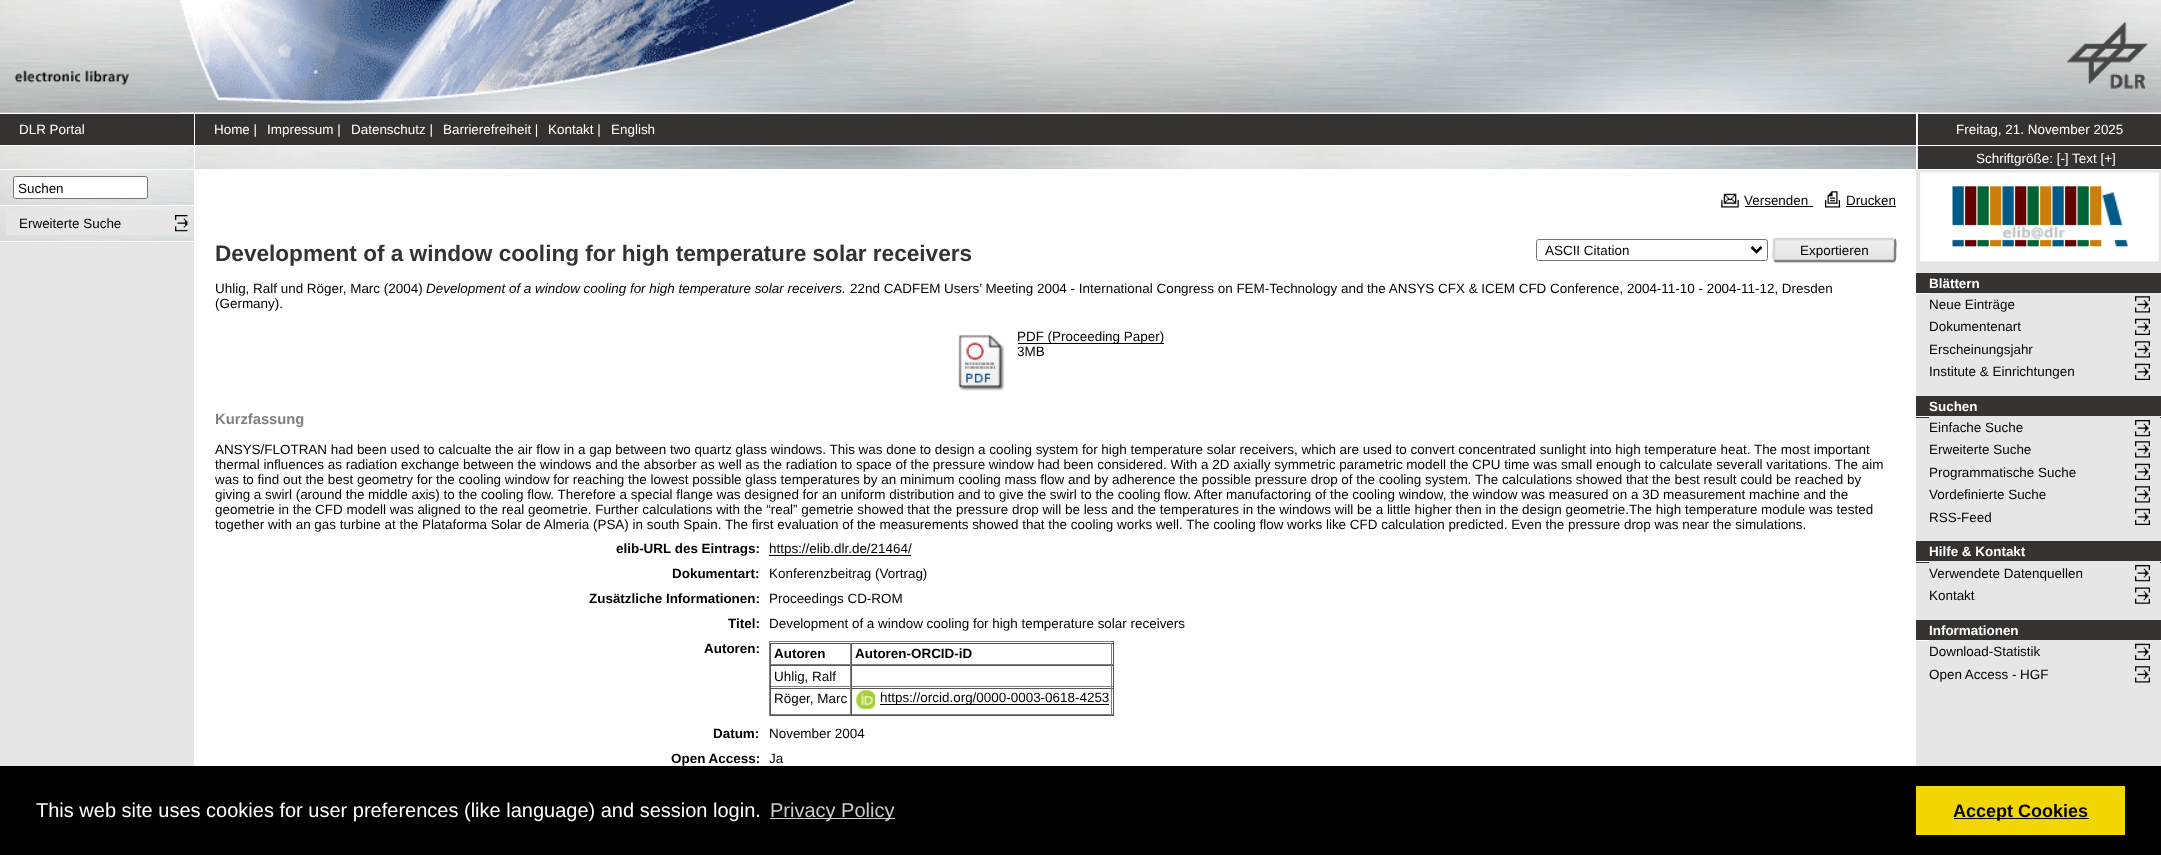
<?xml version="1.0" encoding="UTF-8"?>
<svg xmlns="http://www.w3.org/2000/svg" xmlns:xlink="http://www.w3.org/1999/xlink" width="2161" height="855">
  <rect width="100%" height="100%" fill="#ffffff" />
  <image x="0" y="0" width="2161" height="113" xlink:href="image1.png" />
  <image x="0" y="70" width="180" height="43" xlink:href="image2.png" />
  <image x="180" y="0" width="675" height="104" xlink:href="image3.png" />
  <image x="2067" y="22" width="81" height="67" xlink:href="image4.png" />
  <rect y="114" width="2161" height="652" fill="#e6e6e6" />
  <rect y="114" width="194" height="31" fill="#353331" />
  <rect x="194" y="113" width="1" height="653" fill="#ffffff" />
  <rect y="145" width="2161" height="1" fill="#ffffff" />
  <rect x="195" y="114" width="1721" height="31" fill="#353331" />
  <rect x="1918" y="114" width="243" height="31" fill="#353331" />
  <rect x="1916" y="113" width="1" height="33" fill="#ffffff" />
  <image x="0" y="146" width="194" height="23" xlink:href="image5.png" />
  <rect y="169" width="2161" height="1" fill="#ffffff" />
  <image x="195" y="146" width="1721" height="23" xlink:href="image6.png" />
  <rect x="1918" y="146" width="243" height="23" fill="#353331" />
  <rect x="1916" y="146" width="1" height="24" fill="#ffffff" />
  <image x="0" y="170" width="194" height="35" xlink:href="image7.png" />
  <rect x="13.5" y="176.5" width="134" height="22" rx="2" fill="#ffffff" stroke="#767676" />
  <image x="0" y="206" width="194" height="37" xlink:href="image8.png" />
  <rect y="205" width="194" height="1" fill="#ffffff" />
  <rect y="241" width="194" height="1" fill="#ffffff" />
  <rect x="6" y="211" width="182" height="24" fill="#e6e6e6" />
  <image x="175" y="215" width="13" height="17" xlink:href="image9.png" />
  <rect x="195" y="170" width="1721" height="596" fill="#ffffff" />
  <image x="1721" y="193" width="18" height="15" xlink:href="image10.png" />
  <rect x="1745" y="206" width="68" height="1" fill="#000000" />
  <image x="1825" y="191" width="15" height="17" xlink:href="image11.png" />
  <rect x="1846" y="206" width="50" height="1" fill="#000000" />
  <rect x="1536.5" y="239.5" width="231" height="21" rx="2" fill="none" stroke="#767676" />
  <path d="M 1751.5 247 l 5 5 l 5 -5" fill="none" stroke="#000000" stroke-width="2.5" />
  <rect x="1773" y="238" width="123" height="25" rx="4" fill="#e6e6e6" />
  <image x="1775" y="240" width="120" height="12" xlink:href="image12.png" />
  <path d="M 1894.5 239.5 c 1.5 1.5 0.5 8.5 0.5 10.5 v 6 c 0 2 0.5 5 -2.5 5 h -116.5 l -1.5 -0.5" fill="none" stroke="#7f7f7f" stroke-width="2.5" />
  <path d="M 1774.5 260.5 c -2 -1.5 -0.5 -8.5 -0.5 -10.5 v -6 c 0 -2 -0.5 -5 2 -5 h 116.5 l 2 0.5" fill="none" stroke="#d6d6d6" stroke-width="2.5" />
  <image x="958" y="334" width="47" height="57" xlink:href="image13.png" />
  <rect x="1018" y="343" width="146" height="1" fill="#000000" />
  <rect x="769" y="555" width="142" height="1" fill="#000000" />
  <rect x="769" y="641" width="345" height="1" fill="#808080" />
  <rect x="1113" y="641" width="1" height="75" fill="#555555" />
  <rect x="769" y="715" width="345" height="1" fill="#555555" />
  <rect x="769" y="641" width="1" height="75" fill="#808080" />
  <rect x="770" y="643" width="343" height="1" fill="#555555" />
  <rect x="850" y="643" width="1" height="22" fill="#808080" />
  <rect x="770" y="664" width="81" height="1" fill="#808080" />
  <rect x="770" y="643" width="1" height="22" fill="#555555" />
  <rect x="1111" y="643" width="1" height="22" fill="#808080" />
  <rect x="851" y="664" width="262" height="1" fill="#808080" />
  <rect x="851" y="643" width="1" height="22" fill="#555555" />
  <rect x="770" y="665" width="343" height="1" fill="#555555" />
  <rect x="850" y="665" width="1" height="23" fill="#808080" />
  <rect x="770" y="686" width="81" height="1" fill="#808080" />
  <rect x="770" y="665" width="1" height="23" fill="#555555" />
  <rect x="1111" y="665" width="1" height="23" fill="#808080" />
  <rect x="851" y="686" width="262" height="1" fill="#808080" />
  <rect x="851" y="665" width="1" height="23" fill="#555555" />
  <rect x="770" y="688" width="343" height="1" fill="#555555" />
  <rect x="850" y="688" width="1" height="27" fill="#808080" />
  <rect x="770" y="714" width="81" height="1" fill="#808080" />
  <rect x="770" y="688" width="1" height="27" fill="#555555" />
  <rect x="1111" y="688" width="1" height="27" fill="#808080" />
  <rect x="851" y="714" width="262" height="1" fill="#808080" />
  <rect x="851" y="688" width="1" height="27" fill="#555555" />
  <image x="856" y="689" width="19" height="20" xlink:href="image14.png" />
  <rect x="880" y="704" width="229" height="1" fill="#000000" />
  <image x="1920" y="172" width="239" height="90" xlink:href="image15.png" />
  <rect x="1916" y="273" width="245" height="20" fill="#353331" />
  <rect x="1916" y="293" width="245" height="1" fill="#ffffff" />
  <rect x="1929" y="293" width="231" height="1" fill="#e6e6e6" />
  <image x="2135" y="296" width="15" height="17" xlink:href="image16.png" />
  <image x="2135" y="318" width="15" height="17" xlink:href="image17.png" />
  <image x="2135" y="341" width="15" height="17" xlink:href="image16.png" />
  <image x="2135" y="363" width="15" height="17" xlink:href="image17.png" />
  <rect x="1916" y="396" width="245" height="22" fill="#353331" />
  <rect x="1916" y="416" width="245" height="1" fill="#ffffff" />
  <rect x="1929" y="416" width="231" height="2" fill="#e6e6e6" />
  <image x="2135" y="420" width="15" height="17" xlink:href="image18.png" />
  <image x="2135" y="441" width="15" height="17" xlink:href="image16.png" />
  <image x="2135" y="463" width="15" height="17" xlink:href="image17.png" />
  <image x="2135" y="486" width="15" height="17" xlink:href="image16.png" />
  <image x="2135" y="508" width="15" height="17" xlink:href="image17.png" />
  <rect x="1916" y="541" width="245" height="22" fill="#353331" />
  <rect x="1916" y="561" width="245" height="1" fill="#ffffff" />
  <rect x="1929" y="561" width="231" height="2" fill="#e6e6e6" />
  <image x="2135" y="565" width="15" height="17" xlink:href="image18.png" />
  <image x="2135" y="587" width="15" height="17" xlink:href="image19.png" />
  <rect x="1916" y="620" width="245" height="20" fill="#353331" />
  <rect x="1916" y="640" width="245" height="1" fill="#ffffff" />
  <rect x="1929" y="640" width="231" height="1" fill="#e6e6e6" />
  <image x="2135" y="643" width="15" height="17" xlink:href="image17.png" />
  <image x="2135" y="666" width="15" height="17" xlink:href="image16.png" />
  <rect y="766" width="2161" height="89" fill="#000000" />
  <rect x="770" y="818" width="125" height="1" fill="#cccccc" />
  <rect x="1916" y="786" width="209" height="49" fill="#f1d600" />
  <rect x="1954" y="818" width="135" height="1" fill="#000000" />
  <text x="19" y="134" style="font-family: Liberation Sans; font-size: 13.44px; fill: #ffffff">DLR Portal</text>
  <text x="214" y="134" style="font-family: Liberation Sans; font-size: 13.44px; fill: #ffffff">Home |</text>
  <text x="267" y="134" style="font-family: Liberation Sans; font-size: 13.44px; fill: #ffffff">Impressum |</text>
  <text x="351" y="134" style="font-family: Liberation Sans; font-size: 13.44px; fill: #ffffff">Datenschutz |</text>
  <text x="443" y="134" style="font-family: Liberation Sans; font-size: 13.44px; fill: #ffffff">Barrierefreiheit |</text>
  <text x="548" y="134" style="font-family: Liberation Sans; font-size: 13.44px; fill: #ffffff">Kontakt |</text>
  <text x="611" y="134" style="font-family: Liberation Sans; font-size: 13.44px; fill: #ffffff">English</text>
  <text x="1956" y="134" style="font-family: Liberation Sans; font-size: 13.44px; fill: #ffffff">Freitag, 21. November 2025</text>
  <text x="1976" y="163" style="font-family: Liberation Sans; font-size: 13.44px; fill: #ffffff">Schriftgröße: [-] Text [+]</text>
  <text x="18" y="193" style="font-family: Liberation Sans; font-size: 13.44px; fill: #000000">Suchen</text>
  <text x="19" y="228" style="font-family: Liberation Sans; font-size: 13.44px; fill: #000000">Erweiterte Suche</text>
  <text x="1744" y="205" style="font-family: Liberation Sans; font-size: 13.44px; fill: #000000">Versenden</text>
  <text x="1846" y="205" style="font-family: Liberation Sans; font-size: 13.44px; fill: #000000">Drucken</text>
  <text x="215" y="261" style="font-family: Liberation Sans; font-size: 22.6px; font-weight: bold; fill: #353331">Development of a window cooling for high temperature solar receivers</text>
  <text x="1545" y="255" style="font-family: Liberation Sans; font-size: 13.44px; fill: #000000">ASCII Citation</text>
  <text x="1800" y="255" style="font-family: Liberation Sans; font-size: 13.44px; fill: #000000">Exportieren</text>
  <text x="215" y="293" style="font-family: Liberation Sans; font-size: 13.44px; fill: #000000">Uhlig, Ralf und Röger, Marc (2004)</text>
  <text x="426" y="293" style="font-family: Liberation Sans; font-size: 13.44px; font-style: italic; fill: #000000">Development of a window cooling for high temperature solar receivers.</text>
  <text x="850" y="293" style="font-family: Liberation Sans; font-size: 13.44px; fill: #000000">22nd CADFEM Users’ Meeting 2004 - International Congress on FEM-Technology and the ANSYS CFX &amp; ICEM CFD Conference, 2004-11-10 - 2004-11-12, Dresden</text>
  <text x="215" y="308" style="font-family: Liberation Sans; font-size: 13.44px; fill: #000000">(Germany).</text>
  <text x="1017" y="341" style="font-family: Liberation Sans; font-size: 13.44px; fill: #000000">PDF (Proceeding Paper)</text>
  <text x="1017" y="356" style="font-family: Liberation Sans; font-size: 13.44px; fill: #000000">3MB</text>
  <text x="215" y="424" style="font-family: Liberation Sans; font-size: 14.75px; font-weight: bold; fill: #808080">Kurzfassung</text>
  <text x="215" y="454" style="font-family: Liberation Sans; font-size: 13.44px; fill: #000000">ANSYS/FLOTRAN had been used to calcualte the air flow in a gap between two quartz glass windows. This was done to design a cooling system for high temperature solar receivers, which are used to convert concentrated sunlight into high temperature heat. The most important</text>
  <text x="215" y="469" style="font-family: Liberation Sans; font-size: 13.44px; fill: #000000">thermal influences as radiation exchange between the windows and the absorber as well as the radiation to space of the pressure window had been considered. With a 2D axially symmetric parametric modell the CPU time was small enough to calculate severall varitations. The aim</text>
  <text x="215" y="484" style="font-family: Liberation Sans; font-size: 13.44px; fill: #000000">was to find out the best geometry for the cooling window for reaching the lowest possible glass temperatures by an minimum cooling mass flow and by adherence the possible pressure drop of the cooling system.</text>
  <text x="1475" y="484" style="font-family: Liberation Sans; font-size: 13.44px; fill: #000000">The calculations showed that the best result could be reached by</text>
  <text x="215" y="499" style="font-family: Liberation Sans; font-size: 13.44px; fill: #000000">giving a swirl (around the middle axis) to the cooling flow. Therefore a special flange was designed for an uniform distribution and to give the swirl to the cooling flow. After manufactoring of the cooling window, the window was measured on a 3D measurement machine and the</text>
  <text x="215" y="514" style="font-family: Liberation Sans; font-size: 13.44px; fill: #000000">geometrie in the CFD modell was aligned to the real geometrie. Further calculations with the “real” gemetrie showed that the pressure drop will be less and the temperatures in the windows will be a little higher then in the design geometrie.The high temperature module was tested</text>
  <text x="215" y="529" style="font-family: Liberation Sans; font-size: 13.44px; fill: #000000">together with an gas turbine at the Plataforma Solar de Almeria (PSA) in south Spain. The first evaluation of the measurements showed that the cooling works well. The cooling flow works like CFD calculation predicted. Even the pressure drop was near the simulations.</text>
  <text x="616" y="553" style="font-family: Liberation Sans; font-size: 13.44px; font-weight: bold; fill: #000000">elib-URL des Eintrags:</text>
  <text x="769" y="553" style="font-family: Liberation Sans; font-size: 13.44px; fill: #000000">https://elib.dlr.de/21464/</text>
  <text x="672" y="578" style="font-family: Liberation Sans; font-size: 13.44px; font-weight: bold; fill: #000000">Dokumentart:</text>
  <text x="769" y="578" style="font-family: Liberation Sans; font-size: 13.44px; fill: #000000">Konferenzbeitrag (Vortrag)</text>
  <text x="589" y="603" style="font-family: Liberation Sans; font-size: 13.44px; font-weight: bold; fill: #000000">Zusätzliche Informationen:</text>
  <text x="769" y="603" style="font-family: Liberation Sans; font-size: 13.44px; fill: #000000">Proceedings CD-ROM</text>
  <text x="728" y="628" style="font-family: Liberation Sans; font-size: 13.44px; font-weight: bold; fill: #000000">Titel:</text>
  <text x="769" y="628" style="font-family: Liberation Sans; font-size: 13.44px; fill: #000000">Development of a window cooling for high temperature solar receivers</text>
  <text x="704" y="653" style="font-family: Liberation Sans; font-size: 13.44px; font-weight: bold; fill: #000000">Autoren:</text>
  <text x="774" y="658" style="font-family: Liberation Sans; font-size: 13.44px; font-weight: bold; fill: #000000">Autoren</text>
  <text x="855" y="658" style="font-family: Liberation Sans; font-size: 13.44px; font-weight: bold; fill: #000000">Autoren-ORCID-iD</text>
  <text x="774" y="681" style="font-family: Liberation Sans; font-size: 13.44px; fill: #000000">Uhlig, Ralf</text>
  <text x="774" y="703" style="font-family: Liberation Sans; font-size: 13.44px; fill: #000000">Röger, Marc</text>
  <text x="880" y="702" style="font-family: Liberation Sans; font-size: 13.44px; fill: #000000">https://orcid.org/0000-0003-0618-4253</text>
  <text x="713" y="738" style="font-family: Liberation Sans; font-size: 13.44px; font-weight: bold; fill: #000000">Datum:</text>
  <text x="769" y="738" style="font-family: Liberation Sans; font-size: 13.44px; fill: #000000">November 2004</text>
  <text x="671" y="763" style="font-family: Liberation Sans; font-size: 13.44px; font-weight: bold; fill: #000000">Open Access:</text>
  <text x="769" y="763" style="font-family: Liberation Sans; font-size: 13.44px; fill: #000000">Ja</text>
  <text x="1929" y="288" style="font-family: Liberation Sans; font-size: 13.44px; font-weight: bold; fill: #ffffff">Blättern</text>
  <text x="1929" y="309" style="font-family: Liberation Sans; font-size: 13.44px; fill: #000000">Neue Einträge</text>
  <text x="1929" y="331" style="font-family: Liberation Sans; font-size: 13.44px; fill: #000000">Dokumentenart</text>
  <text x="1929" y="354" style="font-family: Liberation Sans; font-size: 13.44px; fill: #000000">Erscheinungsjahr</text>
  <text x="1929" y="376" style="font-family: Liberation Sans; font-size: 13.44px; fill: #000000">Institute &amp; Einrichtungen</text>
  <text x="1929" y="411" style="font-family: Liberation Sans; font-size: 13.44px; font-weight: bold; fill: #ffffff">Suchen</text>
  <text x="1929" y="432" style="font-family: Liberation Sans; font-size: 13.44px; fill: #000000">Einfache Suche</text>
  <text x="1929" y="454" style="font-family: Liberation Sans; font-size: 13.44px; fill: #000000">Erweiterte Suche</text>
  <text x="1929" y="477" style="font-family: Liberation Sans; font-size: 13.44px; fill: #000000">Programmatische Suche</text>
  <text x="1929" y="499" style="font-family: Liberation Sans; font-size: 13.44px; fill: #000000">Vordefinierte Suche</text>
  <text x="1929" y="522" style="font-family: Liberation Sans; font-size: 13.44px; fill: #000000">RSS-Feed</text>
  <text x="1929" y="556" style="font-family: Liberation Sans; font-size: 13.44px; font-weight: bold; fill: #ffffff">Hilfe &amp; Kontakt</text>
  <text x="1929" y="578" style="font-family: Liberation Sans; font-size: 13.44px; fill: #000000">Verwendete Datenquellen</text>
  <text x="1929" y="600" style="font-family: Liberation Sans; font-size: 13.44px; fill: #000000">Kontakt</text>
  <text x="1929" y="635" style="font-family: Liberation Sans; font-size: 13.44px; font-weight: bold; fill: #ffffff">Informationen</text>
  <text x="1929" y="656" style="font-family: Liberation Sans; font-size: 13.44px; fill: #000000">Download-Statistik</text>
  <text x="1929" y="679" style="font-family: Liberation Sans; font-size: 13.44px; fill: #000000">Open Access - HGF</text>
  <text x="36" y="817" style="font-family: Liberation Sans; font-size: 20px; fill: #ffffff">This web site uses cookies for user preferences (like language) and session login.</text>
  <text x="770" y="817" style="font-family: Liberation Sans; font-size: 20px; fill: #cccccc">Privacy Policy</text>
  <text x="1953" y="817" style="font-family: Liberation Sans; font-size: 18px; font-weight: bold; fill: #000000">Accept Cookies</text>
</svg>
